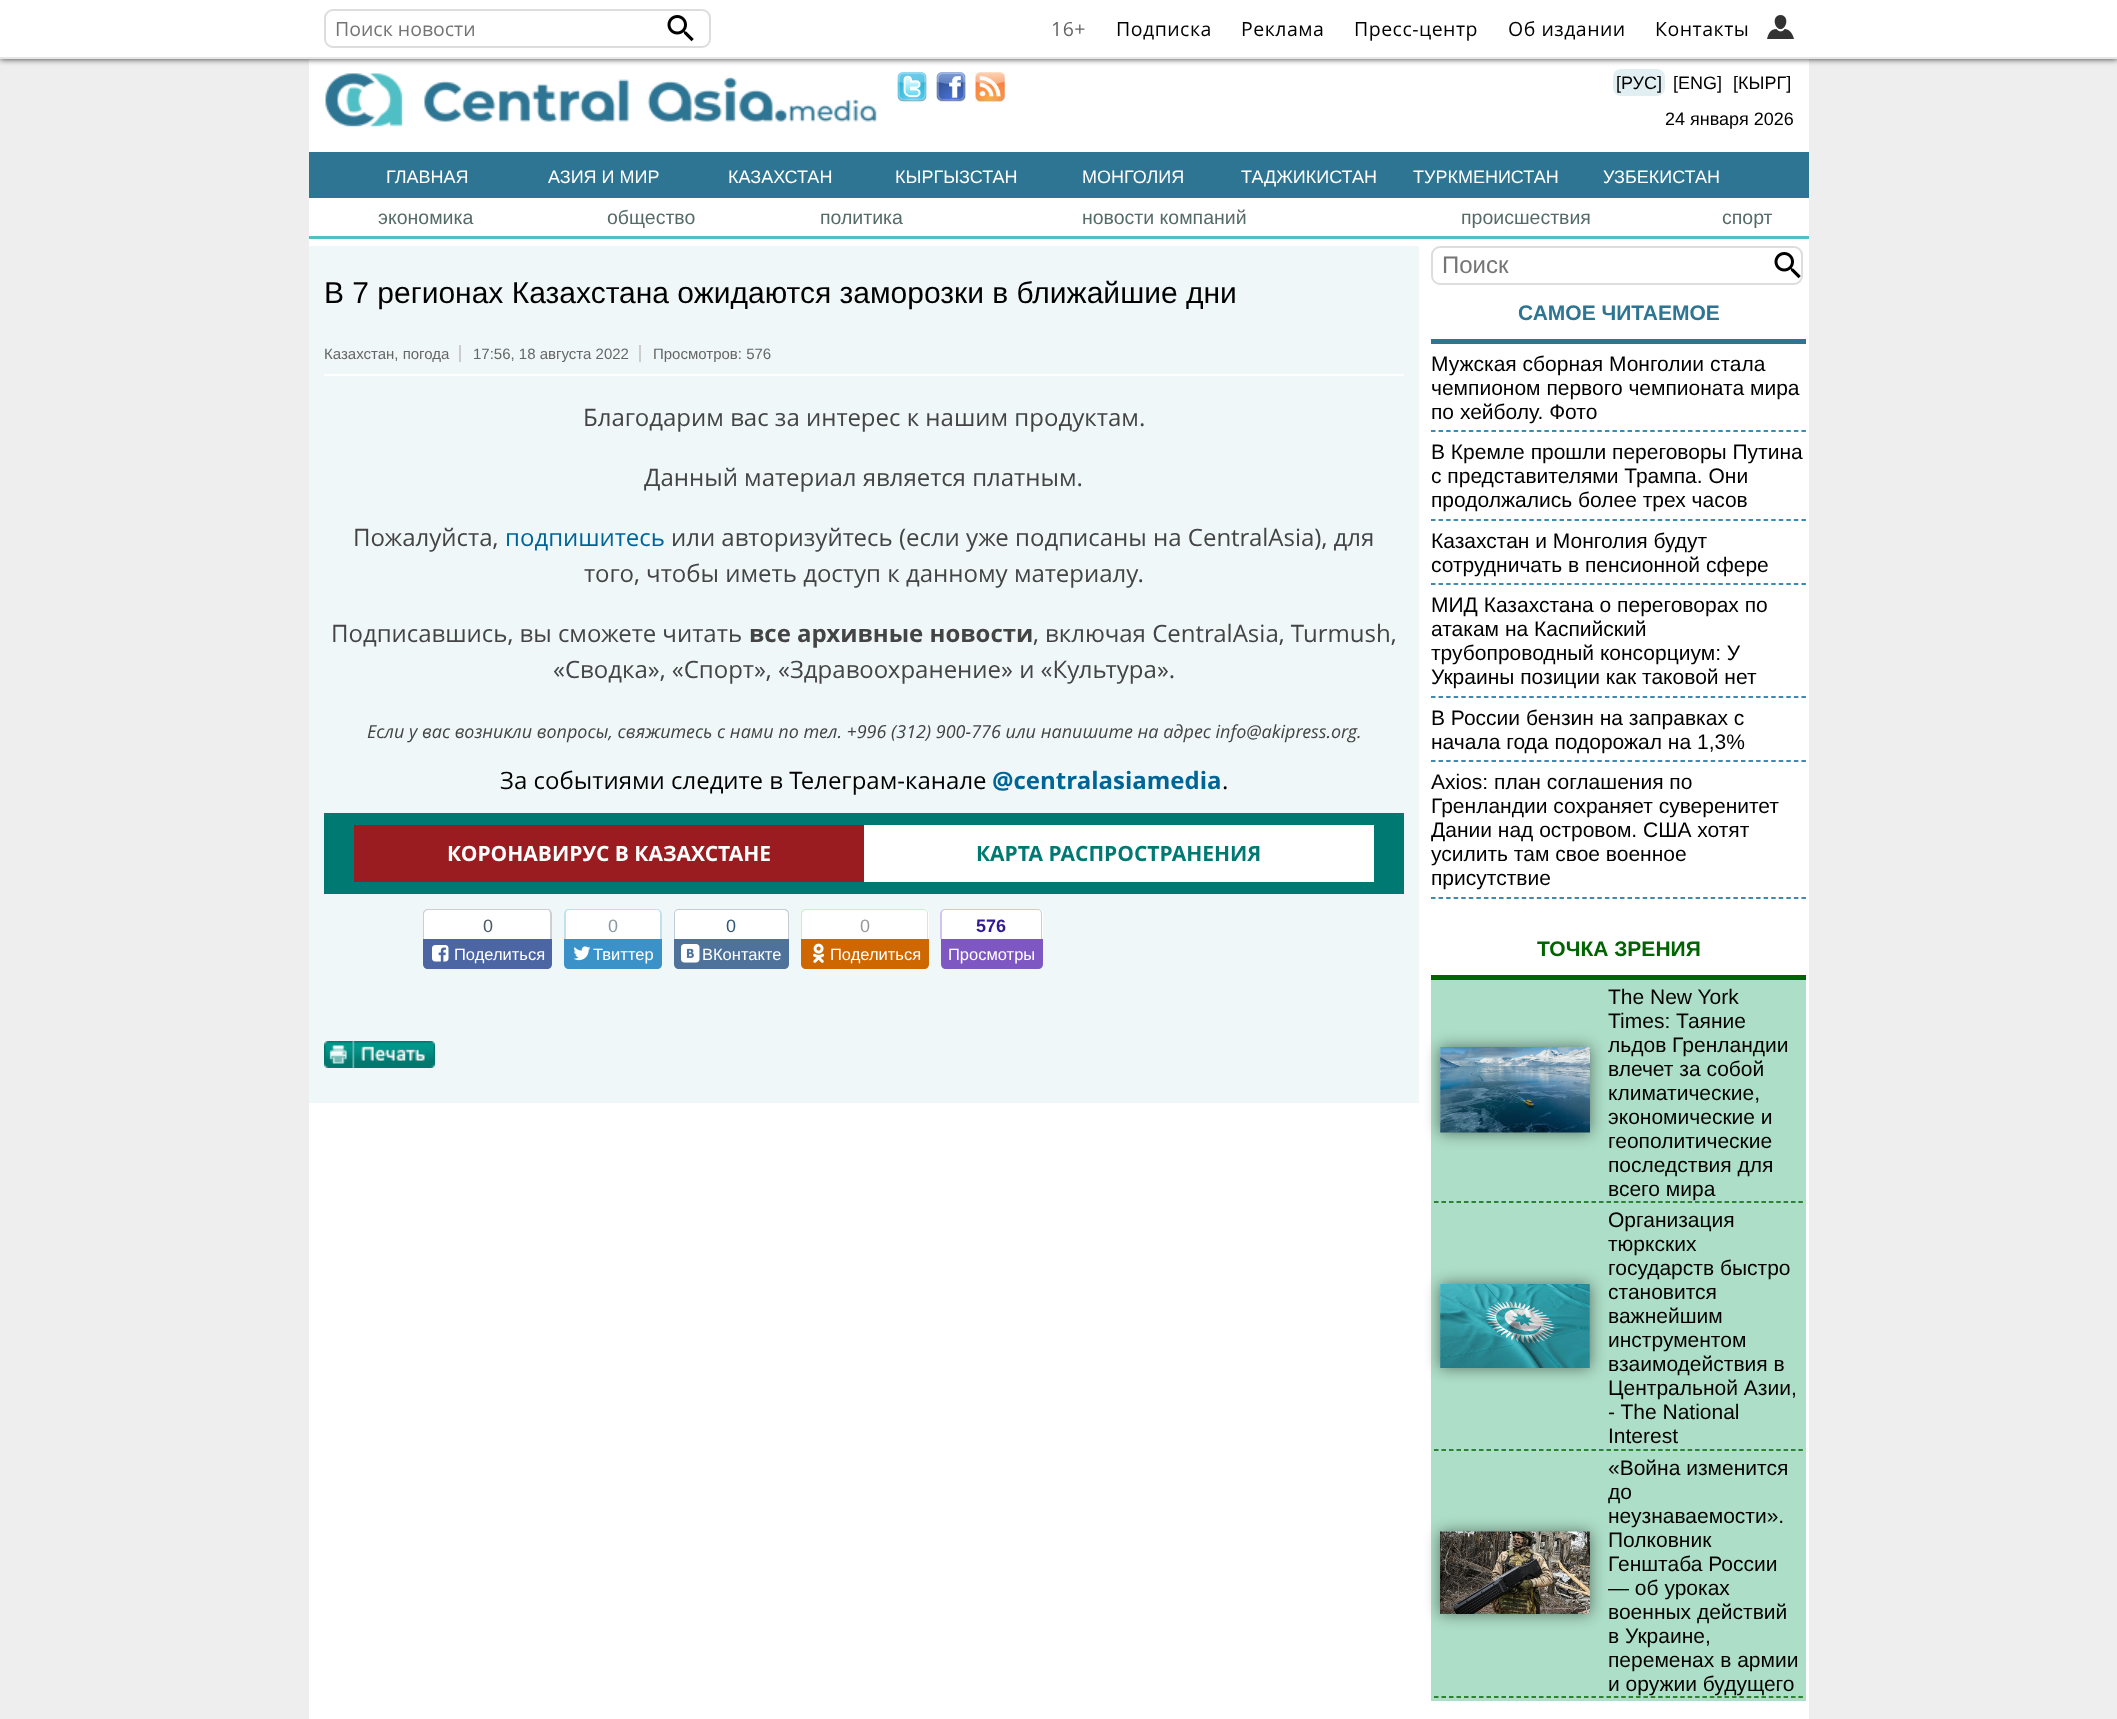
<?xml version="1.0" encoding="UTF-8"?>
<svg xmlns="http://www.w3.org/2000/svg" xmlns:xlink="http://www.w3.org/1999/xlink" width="2117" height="1719">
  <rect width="100%" height="100%" fill="#eeeeee" />
  <rect x="309" y="59" width="1500" height="1660" fill="#ffffff" />
  <rect width="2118" height="59" fill="#000000" fill-opacity="0.8" filter="blur(3px)" />
  <rect width="2117" height="57" fill="#ffffff" />
  <rect y="57" width="2117" height="2" fill="#e6e6e6" />
  <rect x="325" y="10" width="385" height="37" rx="8" fill="none" stroke="#dddddd" stroke-width="2" />
  <image x="667" y="15" width="27" height="27" xlink:href="image1.png" />
  <image x="1767" y="15" width="27" height="24" xlink:href="image2.png" />
  <image x="325" y="73" width="552" height="54" xlink:href="image3.png" />
  <image x="897" y="72" width="30" height="30" xlink:href="image4.png" />
  <image x="936" y="72" width="30" height="30" xlink:href="image5.png" />
  <image x="975" y="72" width="30" height="30" xlink:href="image6.png" />
  <rect x="1613" y="69" width="52" height="27" rx="8" fill="#e1eff3" />
  <rect x="309" y="152" width="1500" height="46" fill="#2d7593" />
  <rect x="309" y="236" width="1500" height="3" fill="#53bec4" />
  <rect x="1431" y="980" width="375" height="721" fill="#addec7" />
  <rect x="1440" y="1047" width="150" height="86" fill="#000000" fill-opacity="0.5" filter="blur(7.5px)" />
  <rect x="309" y="246" width="1110" height="857" fill="#eff7f9" />
  <rect x="324" y="374" width="1080" height="2" fill="#ffffff" />
  <rect x="459" y="345" width="2" height="17" fill="#cccccc" />
  <rect x="639" y="345" width="2" height="17" fill="#cccccc" />
  <rect x="324" y="813" width="1080" height="81" fill="#007973" />
  <rect x="354" y="825" width="510" height="57" fill="#9a1c20" />
  <rect x="864" y="825" width="510" height="57" fill="#ffffff" />
  <path d="M 428 909 h 119 c 3 0 5 2 5 5 v 25 h -129 v -25 c 0 -3 2 -5 5 -5 z" fill="#ffffff" />
  <path d="M 428 909 h 120 c 2 0 4 2 4 5 v 25 h -129 v -25 c 0 -3 2 -5 5 -5 z m 0 1 h 120 c 1 0 2 2 2 4 v 25 h -126 v -25 c 0 -2 2 -4 4 -4 z" fill="#cdced0" fill-rule="evenodd" />
  <path d="M 423 939 h 129 v 25 c 0 3 -2 5 -5 5 h -119 c -3 0 -5 -2 -5 -5 z" fill="#4c66a4" />
  <image x="432" y="945" width="17" height="17" xlink:href="image7.png" />
  <path d="M 569 909 h 88 c 3 0 5 2 5 5 v 25 h -98 v -25 c 0 -3 2 -5 5 -5 z" fill="#ffffff" />
  <path d="M 568 909 h 89 c 2 0 5 2 5 5 v 25 h -98 v -25 c 0 -3 2 -5 4 -5 z m 0 1 h 89 c 2 0 3 2 3 4 v 25 h -94 v -25 c 0 -2 1 -4 2 -4 z" fill="#0084b4" fill-opacity="0.25" fill-rule="evenodd" />
  <path d="M 564 939 h 98 v 25 c 0 3 -2 5 -5 5 h -88 c -3 0 -5 -2 -5 -5 z" fill="#3a92c8" />
  <image x="573" y="946" width="18" height="15" xlink:href="image8.png" />
  <path d="M 679 909 h 105 c 3 0 5 2 5 5 v 25 h -115 v -25 c 0 -3 2 -5 5 -5 z" fill="#ffffff" />
  <path d="M 678 909 h 106 c 3 0 5 2 5 5 v 25 h -115 v -25 c 0 -3 2 -5 4 -5 z m 0 1 h 106 c 2 0 4 2 4 4 v 25 h -113 v -25 c 0 -2 1 -4 3 -4 z" fill="#c3cbd4" fill-rule="evenodd" />
  <path d="M 674 939 h 115 v 25 c 0 3 -2 5 -5 5 h -105 c -3 0 -5 -2 -5 -5 z" fill="#4e729a" />
  <image x="681" y="944" width="19" height="19" xlink:href="image9.png" />
  <path d="M 806 909 h 118 c 3 0 5 2 5 5 v 25 h -128 v -25 c 0 -3 2 -5 5 -5 z" fill="#ffffff" />
  <path d="M 806 909 h 118 c 2 0 4 2 4 5 v 25 h -127 v -25 c 0 -3 2 -5 5 -5 z m 0 1 h 118 c 2 0 3 2 3 4 v 25 h -125 v -25 c 0 -2 2 -4 4 -4 z" fill="#cceecc" fill-rule="evenodd" />
  <path d="M 801 939 h 128 v 25 c 0 3 -2 5 -5 5 h -118 c -3 0 -5 -2 -5 -5 z" fill="#cf6700" />
  <image x="813" y="943" width="12" height="20" xlink:href="image10.png" />
  <path d="M 946 909 h 92 c 3 0 5 2 5 5 v 25 h -102 v -25 c 0 -3 2 -5 5 -5 z" fill="#ffffff" />
  <path d="M 945 909 h 93 c 2 0 4 2 4 5 v 25 h -102 v -25 c 0 -3 3 -5 5 -5 z m 0 1 h 93 c 2 0 3 2 3 4 v 25 h -99 v -25 c 0 -2 1 -4 3 -4 z" fill="#d1c4e9" fill-rule="evenodd" />
  <path d="M 941 939 h 102 v 25 c 0 3 -2 5 -5 5 h -92 c -3 0 -5 -2 -5 -5 z" fill="#7e57c2" />
  <image x="324" y="1041" width="111" height="27" xlink:href="image11.png" />
  <rect x="1432" y="247" width="370" height="37" rx="8" fill="none" stroke="#dddddd" stroke-width="2" />
  <image x="1774" y="252" width="27" height="27" xlink:href="image12.png" />
  <rect x="1431" y="339" width="375" height="5" fill="#2d7593" />
  <path d="M 1431 431 h 375" fill="none" stroke="#006596" stroke-width="1.5" stroke-dasharray="4.5 3.06" />
  <path d="M 1431 520 h 375" fill="none" stroke="#006596" stroke-width="1.5" stroke-dasharray="4.5 3.06" />
  <path d="M 1431 584 h 375" fill="none" stroke="#006596" stroke-width="1.5" stroke-dasharray="4.5 3.06" />
  <path d="M 1431 697 h 375" fill="none" stroke="#006596" stroke-width="1.5" stroke-dasharray="4.5 3.06" />
  <path d="M 1431 761 h 375" fill="none" stroke="#006596" stroke-width="1.5" stroke-dasharray="4.5 3.06" />
  <path d="M 1431 898 h 375" fill="none" stroke="#006596" stroke-width="1.5" stroke-dasharray="4.5 3.06" />
  <rect x="1431" y="975" width="375" height="5" fill="#006400" />
  <path d="M 1434 1202 h 169.5" fill="none" stroke="#006400" stroke-width="1.5" stroke-dasharray="4.5 3" />
  <image x="1440" y="1047" width="150" height="86" xlink:href="image13.png" />
  <path d="M 1606.5 1202 h 196.5" fill="none" stroke="#006400" stroke-width="1.5" stroke-dasharray="4.5 2.88" />
  <path d="M 1434 1450 h 169.5" fill="none" stroke="#006400" stroke-width="1.5" stroke-dasharray="4.5 3" />
  <rect x="1440" y="1284" width="150" height="84" fill="#000000" fill-opacity="0.5" filter="blur(7.5px)" />
  <image x="1440" y="1284" width="150" height="84" xlink:href="image14.png" />
  <path d="M 1606.5 1450 h 196.5" fill="none" stroke="#006400" stroke-width="1.5" stroke-dasharray="4.5 2.88" />
  <path d="M 1434 1697 h 169.5" fill="none" stroke="#006400" stroke-width="1.5" stroke-dasharray="4.5 3" />
  <rect x="1440" y="1532" width="150" height="82" fill="#000000" fill-opacity="0.5" filter="blur(7.5px)" />
  <image x="1440" y="1531" width="150" height="83" xlink:href="image15.png" />
  <path d="M 1606.5 1697 h 196.5" fill="none" stroke="#006400" stroke-width="1.5" stroke-dasharray="4.5 2.88" />
  <text x="335" y="36" style="font-family: Open Sans; font-size: 19.5px; fill: #757575">Поиск новости</text>
  <text x="1051" y="36" style="font-family: Open Sans; font-size: 19.5px; letter-spacing: 0.5px; fill: #666666">16+</text>
  <text x="1116" y="36" style="font-family: Open Sans; font-size: 19.5px; letter-spacing: 0.5px; fill: #000000">Подписка</text>
  <text x="1241" y="36" style="font-family: Open Sans; font-size: 19.5px; letter-spacing: 0.5px; fill: #000000">Реклама</text>
  <text x="1354" y="36" style="font-family: Open Sans; font-size: 19.5px; letter-spacing: 0.5px; fill: #000000">Пресс-центр</text>
  <text x="1508" y="36" style="font-family: Open Sans; font-size: 19.5px; letter-spacing: 0.5px; fill: #000000">Об издании</text>
  <text x="1655" y="36" style="font-family: Open Sans; font-size: 19.5px; letter-spacing: 0.5px; fill: #000000">Контакты</text>
  <text x="1616" y="89" style="font-family: Liberation Sans; font-size: 18px; fill: #000000">[РУС]</text>
  <text x="1673" y="89" style="font-family: Liberation Sans; font-size: 18px; fill: #000000">[ENG]</text>
  <text x="1733" y="89" style="font-family: Liberation Sans; font-size: 18px; fill: #000000">[КЫРГ]</text>
  <text x="1665" y="125" style="font-family: Liberation Sans; font-size: 18px; fill: #000000">24 января 2026</text>
  <text x="386" y="183" style="font-family: Liberation Sans; font-size: 18px; fill: #ffffff">ГЛАВНАЯ</text>
  <text x="548" y="183" style="font-family: Liberation Sans; font-size: 18px; fill: #ffffff">АЗИЯ И МИР</text>
  <text x="728" y="183" style="font-family: Liberation Sans; font-size: 18px; fill: #ffffff">КАЗАХСТАН</text>
  <text x="895" y="183" style="font-family: Liberation Sans; font-size: 18px; fill: #ffffff">КЫРГЫЗСТАН</text>
  <text x="1082" y="183" style="font-family: Liberation Sans; font-size: 18px; fill: #ffffff">МОНГОЛИЯ</text>
  <text x="1241" y="183" style="font-family: Liberation Sans; font-size: 18px; fill: #ffffff">ТАДЖИКИСТАН</text>
  <text x="1413" y="183" style="font-family: Liberation Sans; font-size: 18px; fill: #ffffff">ТУРКМЕНИСТАН</text>
  <text x="1603" y="183" style="font-family: Liberation Sans; font-size: 18px; fill: #ffffff">УЗБЕКИСТАН</text>
  <text x="378" y="224" style="font-family: Liberation Sans; font-size: 19.5px; fill: #556b68">экономика</text>
  <text x="607" y="224" style="font-family: Liberation Sans; font-size: 19.5px; fill: #556b68">общество</text>
  <text x="820" y="224" style="font-family: Liberation Sans; font-size: 19.5px; fill: #556b68">политика</text>
  <text x="1082" y="224" style="font-family: Liberation Sans; font-size: 19.5px; fill: #556b68">новости компаний</text>
  <text x="1461" y="224" style="font-family: Liberation Sans; font-size: 19.5px; fill: #556b68">происшествия</text>
  <text x="1722" y="224" style="font-family: Liberation Sans; font-size: 19.5px; fill: #556b68">спорт</text>
  <text x="324" y="303" style="font-family: Liberation Sans; font-size: 30px; fill: #000000">В 7 регионах Казахстана ожидаются заморозки в ближайшие дни</text>
  <text x="324" y="359" style="font-family: Liberation Sans; font-size: 15px; fill: #666666">Казахстан, погода</text>
  <text x="473" y="359" style="font-family: Liberation Sans; font-size: 15px; fill: #666666">17:56, 18 августа 2022</text>
  <text x="653" y="359" style="font-family: Liberation Sans; font-size: 15px; fill: #666666">Просмотров: 576</text>
  <text x="583" y="426" style="font-family: Open Sans; font-size: 24px; fill: #444444">Благодарим вас за интерес к нашим продуктам.</text>
  <text x="644" y="486" style="font-family: Open Sans; font-size: 24px; fill: #444444">Данный материал является платным.</text>
  <text x="353" y="546" style="font-family: Open Sans; font-size: 24px; fill: #444444">Пожалуйста,</text>
  <text x="505" y="546" style="font-family: Open Sans; font-size: 24px; fill: #006596">подпишитесь</text>
  <text x="671" y="546" style="font-family: Open Sans; font-size: 24px; fill: #444444">или авторизуйтесь (если уже подписаны на CentralAsia), для</text>
  <text x="584" y="582" style="font-family: Open Sans; font-size: 24px; fill: #444444">того, чтобы иметь доступ к данному материалу.</text>
  <text x="331" y="642" style="font-family: Open Sans; font-size: 24px; fill: #444444">Подписавшись, вы сможете читать</text>
  <text x="749" y="642" style="font-family: Open Sans; font-size: 24px; font-weight: bold; fill: #444444">все архивные новости</text>
  <text x="1033" y="642" style="font-family: Open Sans; font-size: 24px; fill: #444444">, включая CentralAsia, Turmush,</text>
  <text x="553" y="678" style="font-family: Open Sans; font-size: 24px; fill: #444444">«Сводка», «Спорт», «Здравоохранение» и «Культура».</text>
  <text x="367" y="738" style="font-family: Open Sans; font-size: 18px; font-style: italic; fill: #444444">Если у вас возникли вопросы, свяжитесь с нами по тел. +996 (312) 900-776 или напишите на адрес info@akipress.org.</text>
  <text x="500" y="789" style="font-family: Open Sans; font-size: 24px; fill: #000000">За событиями следите в Телеграм-канале</text>
  <text x="992" y="789" style="font-family: Open Sans; font-size: 24px; font-weight: bold; fill: #006596">@centralasiamedia</text>
  <text x="1222" y="789" style="font-family: Open Sans; font-size: 24px; fill: #000000">.</text>
  <text x="447" y="861" style="font-family: Open Sans; font-size: 21px; font-weight: bold; fill: #ffffff">КОРОНАВИРУС В КАЗАХСТАНЕ</text>
  <text x="976" y="861" style="font-family: Open Sans; font-size: 21px; font-weight: bold; fill: #007973">КАРТА РАСПРОСТРАНЕНИЯ</text>
  <text x="483" y="932" style="font-family: Liberation Sans; font-size: 18px; fill: #4e5665">0</text>
  <text x="454" y="960" style="font-family: Liberation Sans; font-size: 16.5px; fill: #ffffff">Поделиться</text>
  <text x="608" y="932" style="font-family: Liberation Sans; font-size: 18px; fill: #8899a6">0</text>
  <text x="593" y="960" style="font-family: Liberation Sans; font-size: 16.5px; fill: #ffffff">Твиттер</text>
  <text x="726" y="932" style="font-family: Liberation Sans; font-size: 18px; fill: #2b587a">0</text>
  <text x="702" y="960" style="font-family: Liberation Sans; font-size: 16.5px; fill: #ffffff">ВКонтакте</text>
  <text x="860" y="932" style="font-family: Liberation Sans; font-size: 18px; fill: #999999">0</text>
  <text x="830" y="960" style="font-family: Liberation Sans; font-size: 16.5px; fill: #ffffff">Поделиться</text>
  <text x="976" y="932" style="font-family: Liberation Sans; font-size: 18px; font-weight: bold; fill: #311b92">576</text>
  <text x="948" y="960" style="font-family: Liberation Sans; font-size: 16.5px; fill: #ffffff">Просмотры</text>
  <text x="1442" y="273" style="font-family: Liberation Sans; font-size: 24px; fill: #757575">Поиск</text>
  <text x="1518" y="320" style="font-family: Liberation Sans; font-size: 21px; font-weight: bold; fill: #2d7593">САМОЕ ЧИТАЕМОЕ</text>
  <text x="1431" y="371" style="font-family: Liberation Sans; font-size: 21px; fill: #000000">Мужская сборная Монголии стала</text>
  <text x="1431" y="395" style="font-family: Liberation Sans; font-size: 21px; fill: #000000">чемпионом первого чемпионата мира</text>
  <text x="1431" y="419" style="font-family: Liberation Sans; font-size: 21px; fill: #000000">по хейболу. Фото</text>
  <text x="1431" y="459" style="font-family: Liberation Sans; font-size: 21px; fill: #000000">В Кремле прошли переговоры Путина</text>
  <text x="1431" y="483" style="font-family: Liberation Sans; font-size: 21px; fill: #000000">с представителями Трампа. Они</text>
  <text x="1431" y="507" style="font-family: Liberation Sans; font-size: 21px; fill: #000000">продолжались более трех часов</text>
  <text x="1431" y="548" style="font-family: Liberation Sans; font-size: 21px; fill: #000000">Казахстан и Монголия будут</text>
  <text x="1431" y="572" style="font-family: Liberation Sans; font-size: 21px; fill: #000000">сотрудничать в пенсионной сфере</text>
  <text x="1431" y="612" style="font-family: Liberation Sans; font-size: 21px; fill: #000000">МИД Казахстана о переговорах по</text>
  <text x="1431" y="636" style="font-family: Liberation Sans; font-size: 21px; fill: #000000">атакам на Каспийский</text>
  <text x="1431" y="660" style="font-family: Liberation Sans; font-size: 21px; fill: #000000">трубопроводный консорциум: У</text>
  <text x="1431" y="684" style="font-family: Liberation Sans; font-size: 21px; fill: #000000">Украины позиции как таковой нет</text>
  <text x="1431" y="725" style="font-family: Liberation Sans; font-size: 21px; fill: #000000">В России бензин на заправках с</text>
  <text x="1431" y="749" style="font-family: Liberation Sans; font-size: 21px; fill: #000000">начала года подорожал на 1,3%</text>
  <text x="1431" y="789" style="font-family: Liberation Sans; font-size: 21px; fill: #000000">Axios: план соглашения по</text>
  <text x="1431" y="813" style="font-family: Liberation Sans; font-size: 21px; fill: #000000">Гренландии сохраняет суверенитет</text>
  <text x="1431" y="837" style="font-family: Liberation Sans; font-size: 21px; fill: #000000">Дании над островом. США хотят</text>
  <text x="1431" y="861" style="font-family: Liberation Sans; font-size: 21px; fill: #000000">усилить там свое военное</text>
  <text x="1431" y="885" style="font-family: Liberation Sans; font-size: 21px; fill: #000000">присутствие</text>
  <text x="1537" y="956" style="font-family: Liberation Sans; font-size: 21px; font-weight: bold; fill: #006400">ТОЧКА ЗРЕНИЯ</text>
  <text x="1608" y="1004" style="font-family: Liberation Sans; font-size: 21px; fill: #000000">The New York</text>
  <text x="1608" y="1028" style="font-family: Liberation Sans; font-size: 21px; fill: #000000">Times: Таяние</text>
  <text x="1608" y="1052" style="font-family: Liberation Sans; font-size: 21px; fill: #000000">льдов Гренландии</text>
  <text x="1608" y="1076" style="font-family: Liberation Sans; font-size: 21px; fill: #000000">влечет за собой</text>
  <text x="1608" y="1100" style="font-family: Liberation Sans; font-size: 21px; fill: #000000">климатические,</text>
  <text x="1608" y="1124" style="font-family: Liberation Sans; font-size: 21px; fill: #000000">экономические и</text>
  <text x="1608" y="1148" style="font-family: Liberation Sans; font-size: 21px; fill: #000000">геополитические</text>
  <text x="1608" y="1172" style="font-family: Liberation Sans; font-size: 21px; fill: #000000">последствия для</text>
  <text x="1608" y="1196" style="font-family: Liberation Sans; font-size: 21px; fill: #000000">всего мира</text>
  <text x="1608" y="1227" style="font-family: Liberation Sans; font-size: 21px; fill: #000000">Организация</text>
  <text x="1608" y="1251" style="font-family: Liberation Sans; font-size: 21px; fill: #000000">тюркских</text>
  <text x="1608" y="1275" style="font-family: Liberation Sans; font-size: 21px; fill: #000000">государств быстро</text>
  <text x="1608" y="1299" style="font-family: Liberation Sans; font-size: 21px; fill: #000000">становится</text>
  <text x="1608" y="1323" style="font-family: Liberation Sans; font-size: 21px; fill: #000000">важнейшим</text>
  <text x="1608" y="1347" style="font-family: Liberation Sans; font-size: 21px; fill: #000000">инструментом</text>
  <text x="1608" y="1371" style="font-family: Liberation Sans; font-size: 21px; fill: #000000">взаимодействия в</text>
  <text x="1608" y="1395" style="font-family: Liberation Sans; font-size: 21px; fill: #000000">Центральной Азии,</text>
  <text x="1608" y="1419" style="font-family: Liberation Sans; font-size: 21px; fill: #000000">- The National</text>
  <text x="1608" y="1443" style="font-family: Liberation Sans; font-size: 21px; fill: #000000">Interest</text>
  <text x="1608" y="1475" style="font-family: Liberation Sans; font-size: 21px; fill: #000000">«Война изменится</text>
  <text x="1608" y="1499" style="font-family: Liberation Sans; font-size: 21px; fill: #000000">до</text>
  <text x="1608" y="1523" style="font-family: Liberation Sans; font-size: 21px; fill: #000000">неузнаваемости».</text>
  <text x="1608" y="1547" style="font-family: Liberation Sans; font-size: 21px; fill: #000000">Полковник</text>
  <text x="1608" y="1571" style="font-family: Liberation Sans; font-size: 21px; fill: #000000">Генштаба России</text>
  <text x="1608" y="1595" style="font-family: Liberation Sans; font-size: 21px; fill: #000000">— об уроках</text>
  <text x="1608" y="1619" style="font-family: Liberation Sans; font-size: 21px; fill: #000000">военных действий</text>
  <text x="1608" y="1643" style="font-family: Liberation Sans; font-size: 21px; fill: #000000">в Украине,</text>
  <text x="1608" y="1667" style="font-family: Liberation Sans; font-size: 21px; fill: #000000">переменах в армии</text>
  <text x="1608" y="1691" style="font-family: Liberation Sans; font-size: 21px; fill: #000000">и оружии будущего</text>
</svg>
